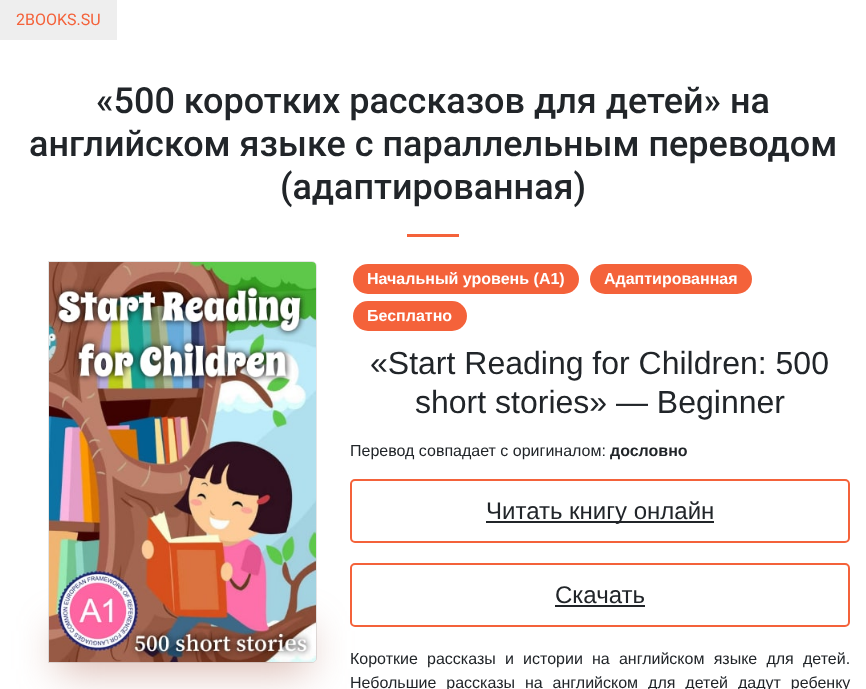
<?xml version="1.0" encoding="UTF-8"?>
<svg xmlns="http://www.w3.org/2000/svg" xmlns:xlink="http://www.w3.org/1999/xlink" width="866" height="689">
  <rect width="100%" height="100%" fill="#ffffff" />
  <rect width="117" height="40" fill="#eeeeee" />
  <rect x="407" y="234" width="52" height="3" fill="#f4623a" />
  <rect x="58" y="630" width="250" height="40" fill="#b06a58" fill-opacity="0.5" filter="blur(21px)" />
  <path d="M 48.5 261.5 h 263.5 c 2.5 0 4.5 2 4.5 4.5 v 392 c 0 2.5 -2 4.5 -4.5 4.5 h -263.5 z" fill="none" stroke="#000000" stroke-opacity="0.1" />
  <image x="49" y="262" width="267" height="400" xlink:href="image1.png" />
  <rect x="353" y="264" width="226" height="30" rx="15" fill="#f4623a" />
  <rect x="590" y="264" width="162" height="30" rx="15" fill="#f4623a" />
  <rect x="353" y="301" width="114" height="30" rx="15" fill="#f4623a" />
  <rect x="351" y="480" width="498" height="62" rx="4" fill="none" stroke="#f4623a" stroke-width="2" />
  <rect x="486" y="521" width="228" height="2" fill="#212529" />
  <rect x="351" y="564" width="498" height="62" rx="4" fill="none" stroke="#f4623a" stroke-width="2" />
  <rect x="555" y="605" width="90" height="2" fill="#212529" />
  <text x="16" y="25" style="font-family: Roboto; font-size: 16px; fill: #f4623a">2BOOKS.SU</text>
  <text x="96" y="113" style="font-family: Roboto; font-size: 36px; font-weight: 500; fill: #212529">«500 коротких рассказов для детей» на</text>
  <text x="29" y="156" style="font-family: Roboto; font-size: 36px; font-weight: 500; fill: #212529">английском языке с параллельным переводом</text>
  <text x="280" y="199" style="font-family: Roboto; font-size: 36px; font-weight: 500; fill: #212529">(адаптированная)</text>
  <text x="367" y="284" style="font-family: Liberation Sans; font-size: 16px; font-weight: bold; fill: #ffffff">Начальный уровень (A1)</text>
  <text x="604" y="284" style="font-family: Liberation Sans; font-size: 16px; font-weight: bold; fill: #ffffff">Адаптированная</text>
  <text x="367" y="321" style="font-family: Liberation Sans; font-size: 16px; font-weight: bold; fill: #ffffff">Бесплатно</text>
  <text x="370" y="374" style="font-family: Liberation Sans; font-size: 32px; fill: #212529">«Start Reading for Children: 500</text>
  <text x="415" y="413" style="font-family: Liberation Sans; font-size: 32px; fill: #212529">short stories» — Beginner</text>
  <text x="350" y="456" style="font-family: Liberation Sans; font-size: 16px; fill: #212529">Перевод совпадает с оригиналом:</text>
  <text x="610" y="456" style="font-family: Liberation Sans; font-size: 16px; font-weight: bold; fill: #212529">дословно</text>
  <text x="486" y="519" style="font-family: Liberation Sans; font-size: 24px; fill: #212529">Читать книгу онлайн</text>
  <text x="555" y="603" style="font-family: Liberation Sans; font-size: 24px; fill: #212529">Скачать</text>
  <text x="350" y="664" word-spacing="4.75" style="font-family: Liberation Sans; font-size: 16px; fill: #212529">Короткие рассказы и истории на английском языке для детей.</text>
  <text x="350" y="688" word-spacing="5.5" style="font-family: Liberation Sans; font-size: 16px; fill: #212529">Небольшие рассказы на английском для детей дадут ребенку</text>
</svg>
